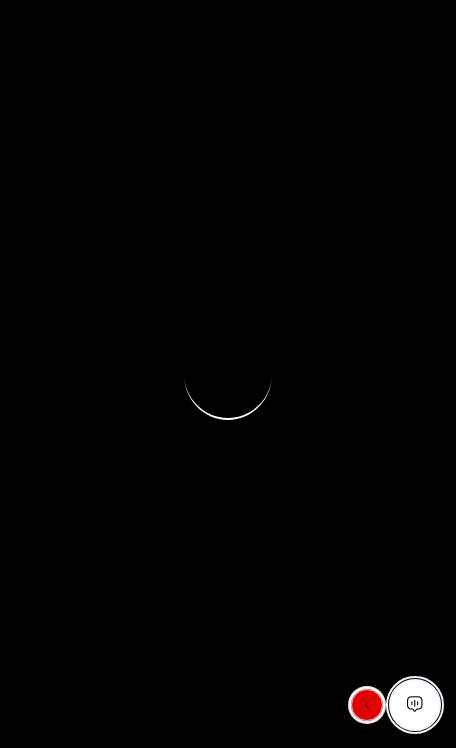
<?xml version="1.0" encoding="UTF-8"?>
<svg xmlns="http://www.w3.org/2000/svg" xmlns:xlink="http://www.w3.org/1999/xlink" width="456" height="748">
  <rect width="100%" height="100%" fill="#000000" />
  <path d="M 184 374 c 0 24 20 44 44 44 c 24 0 44 -20 44 -44 c 0 26 -20 46 -44 46 c -24 0 -44 -20 -44 -46" fill="#ffffff" />
  <circle cx="367" cy="705" r="19" fill="#ffffff" />
  <circle cx="367" cy="705" r="18.5" fill="none" stroke="#5f5f5f" stroke-opacity="0.2" />
  <circle cx="367" cy="705" r="16" fill="#de0202" />
  <circle cx="367" cy="705" r="15.5" fill="none" stroke="#ffffff" stroke-opacity="0.7" />
  <path d="M 368.5 708 l -3 -3 l 3 -3" fill="none" stroke="#000000" stroke-linecap="round" stroke-linejoin="round" />
  <circle cx="415" cy="705" r="28" fill="none" stroke="#f3f6fc" stroke-width="2" />
  <circle cx="415" cy="705" r="25" fill="#ffffff" stroke="#f3f6fc" stroke-width="2" />
  <image x="407" y="696" width="16" height="16" xlink:href="image1.png" />
</svg>
